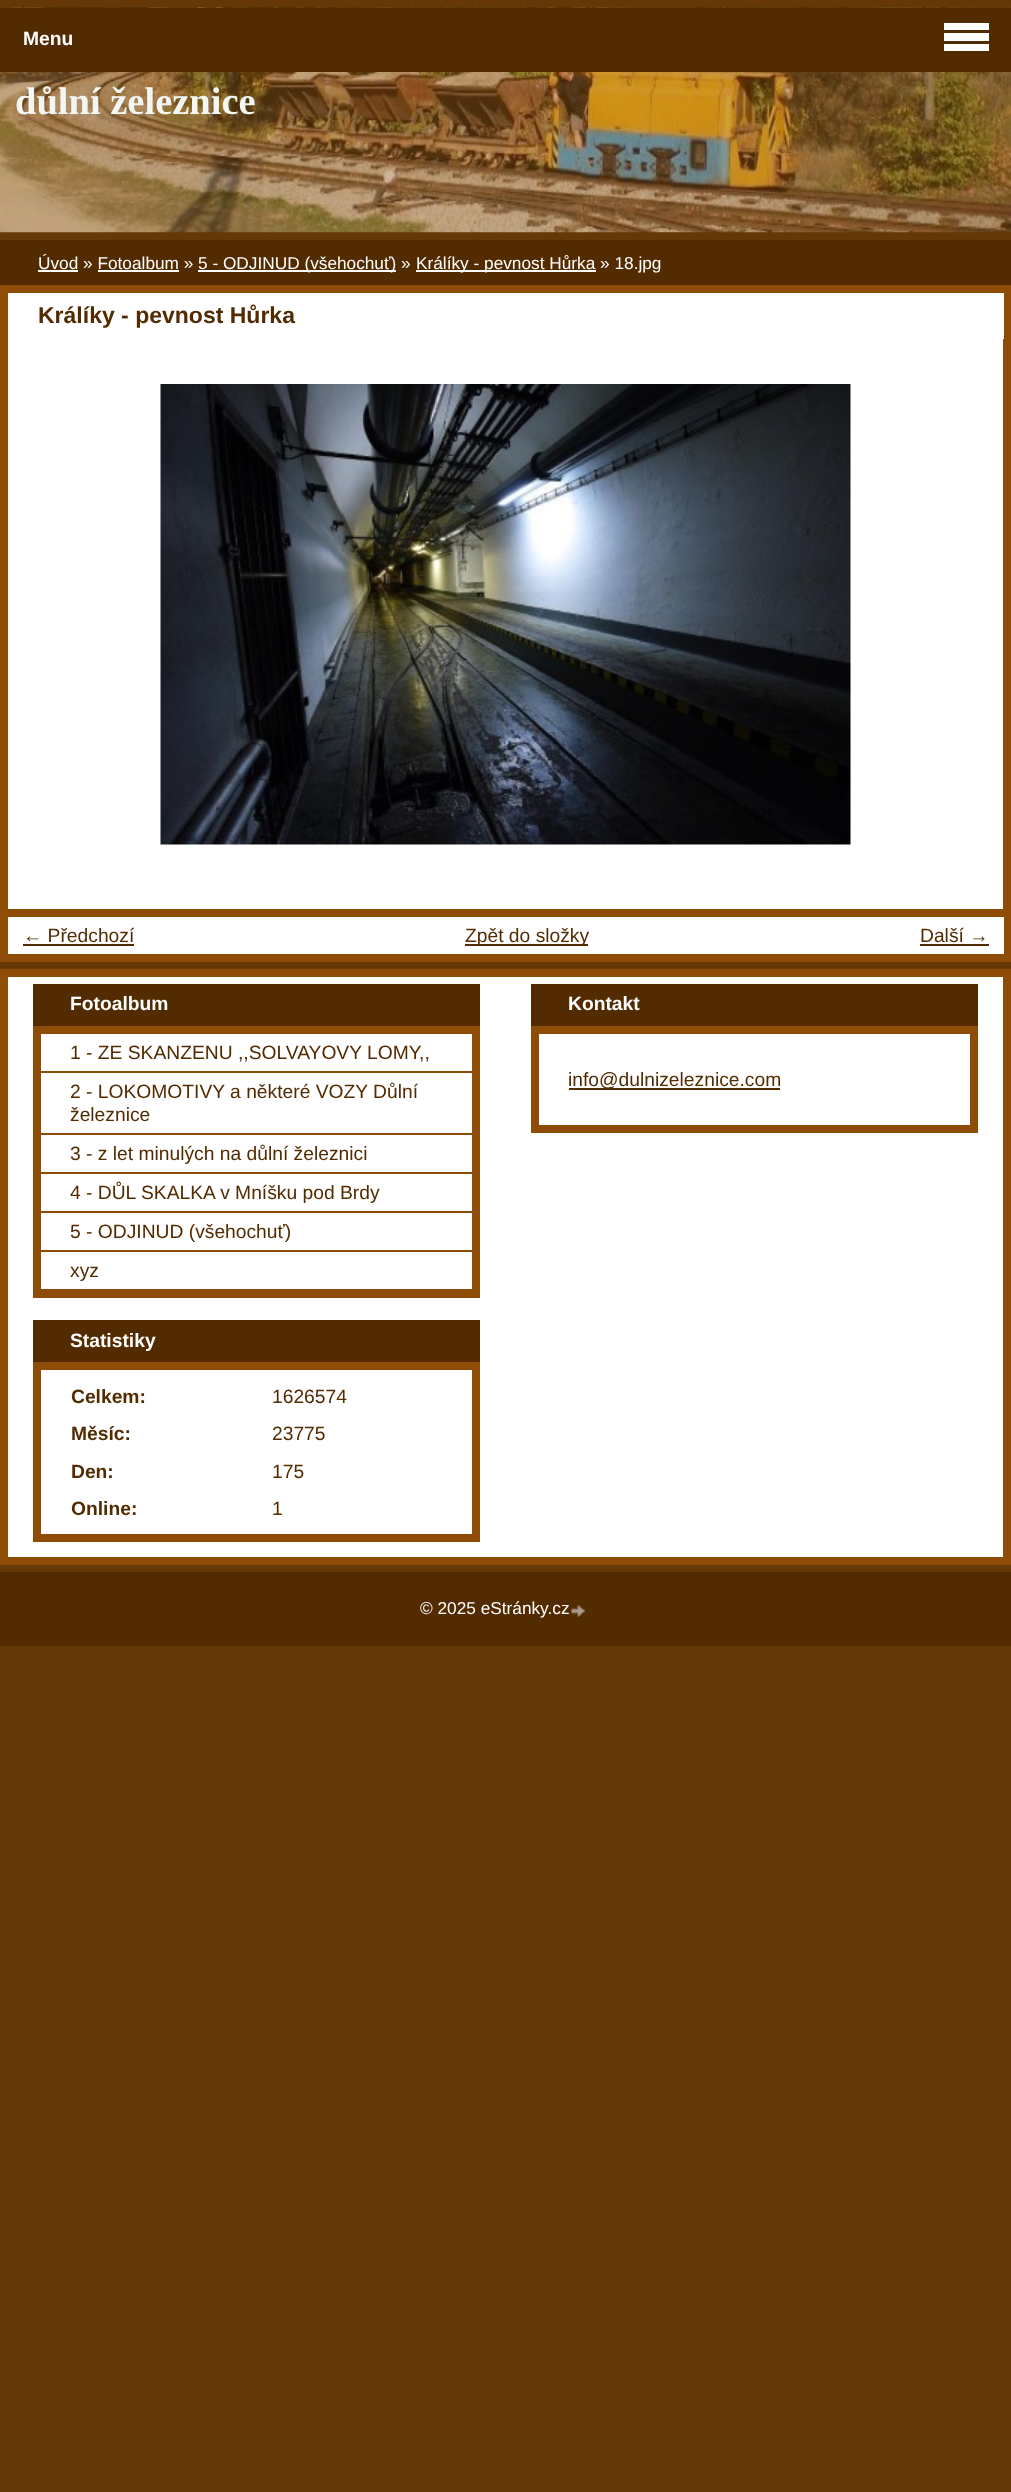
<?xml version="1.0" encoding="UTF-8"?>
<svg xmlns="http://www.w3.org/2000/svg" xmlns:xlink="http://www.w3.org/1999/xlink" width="1011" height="2492">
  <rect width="100%" height="100%" fill="#643807" />
  <rect y="232" width="1011" height="1" fill="#532b00" />
  <image x="0" y="7" width="1011" height="226" xlink:href="image2.png" />
  <rect y="8" width="1011" height="64" fill="#532b00" />
  <rect x="944" y="23" width="45" height="7" fill="#ffffff" />
  <rect x="944" y="33" width="45" height="8" fill="#ffffff" />
  <rect x="944" y="44" width="45" height="7" fill="#ffffff" />
  <rect x="4" y="973" width="1003" height="588" fill="#ffffff" stroke="#8e4c07" stroke-width="8" />
  <rect x="33" y="984" width="447" height="42" fill="#532b00" />
  <rect x="37" y="1030" width="439" height="264" fill="none" stroke="#8e4c06" stroke-width="8" />
  <rect x="41" y="1071" width="432" height="2" fill="#8e4c06" />
  <rect x="41" y="1133" width="432" height="2" fill="#8e4c06" />
  <rect x="41" y="1172" width="432" height="2" fill="#8e4c06" />
  <rect x="41" y="1211" width="432" height="2" fill="#8e4c06" />
  <rect x="41" y="1250" width="432" height="2" fill="#8e4c06" />
  <rect x="41" y="1289" width="432" height="1" fill="#8e4c06" />
  <rect x="531" y="984" width="447" height="42" fill="#532b00" />
  <rect x="535" y="1030" width="439" height="99" fill="none" stroke="#8e4c06" stroke-width="8" />
  <rect x="569" y="1088" width="211" height="2" fill="#532b00" />
  <rect x="33" y="1320" width="447" height="42" fill="#532b00" />
  <rect x="37" y="1366" width="439" height="172" fill="none" stroke="#8e4c06" stroke-width="8" />
  <rect y="240" width="1011" height="45" fill="#532b00" />
  <rect x="38" y="270" width="40" height="2" fill="#ffffff" />
  <rect x="198" y="270" width="198" height="2" fill="#ffffff" />
  <rect x="416" y="270" width="180" height="2" fill="#ffffff" />
  <rect x="98" y="270" width="81" height="2" fill="#ffffff" />
  <rect x="8" y="339" width="995" height="570" fill="#ffffff" />
  <rect x="4" y="289" width="1003" height="669" fill="none" stroke="#8e4c06" stroke-width="8" />
  <rect x="8" y="293" width="996" height="46" fill="#ffffff" />
  <image x="160" y="384" width="691" height="461" xlink:href="image1.png" />
  <rect x="8" y="917" width="996" height="37" fill="#ffffff" />
  <rect x="8" y="909" width="996" height="8" fill="#8e4c06" />
  <rect x="23" y="944" width="111" height="2" fill="#532b00" />
  <rect x="465" y="944" width="123" height="2" fill="#532b00" />
  <rect x="920" y="944" width="69" height="2" fill="#532b00" />
  <rect y="72" width="1011" height="161" fill="#8e4b07" fill-opacity="0.4" />
  <rect y="1572" width="1011" height="74" fill="#532b00" />
  <image x="571" y="1605" width="14" height="12" xlink:href="image3.png" />
  <text x="23" y="45" style="font-family: Liberation Sans; font-size: 19.25px; font-weight: bold; fill: #ffffff">Menu</text>
  <text x="70" y="1010" style="font-family: Liberation Sans; font-size: 19.25px; font-weight: bold; fill: #ffffff">Fotoalbum</text>
  <text x="70" y="1059" style="font-family: Liberation Sans; font-size: 19.25px; fill: #532b00">1 - ZE SKANZENU ,,SOLVAYOVY LOMY,,</text>
  <text x="70" y="1098" style="font-family: Liberation Sans; font-size: 19.25px; fill: #532b00">2 - LOKOMOTIVY a některé VOZY Důlní</text>
  <text x="70" y="1121" style="font-family: Liberation Sans; font-size: 19.25px; fill: #532b00">železnice</text>
  <text x="70" y="1160" style="font-family: Liberation Sans; font-size: 19.25px; fill: #532b00">3 - z let minulých na důlní železnici</text>
  <text x="70" y="1199" style="font-family: Liberation Sans; font-size: 19.25px; fill: #532b00">4 - DŮL SKALKA v Mníšku pod Brdy</text>
  <text x="70" y="1238" style="font-family: Liberation Sans; font-size: 19.25px; fill: #532b00">5 - ODJINUD (všehochuť)</text>
  <text x="70" y="1277" style="font-family: Liberation Sans; font-size: 19.25px; fill: #532b00">xyz</text>
  <text x="568" y="1010" style="font-family: Liberation Sans; font-size: 19.25px; font-weight: bold; fill: #ffffff">Kontakt</text>
  <text x="568" y="1086" style="font-family: Liberation Sans; font-size: 19.25px; fill: #532b00">info@dulnizeleznice.com</text>
  <text x="70" y="1347" style="font-family: Liberation Sans; font-size: 19.25px; font-weight: bold; fill: #ffffff">Statistiky</text>
  <text x="71" y="1403" style="font-family: Liberation Sans; font-size: 19.25px; font-weight: bold; fill: #532b00">Celkem:</text>
  <text x="272" y="1403" style="font-family: Liberation Sans; font-size: 19.25px; fill: #532b00">1626574</text>
  <text x="71" y="1440" style="font-family: Liberation Sans; font-size: 19.25px; font-weight: bold; fill: #532b00">Měsíc:</text>
  <text x="272" y="1440" style="font-family: Liberation Sans; font-size: 19.25px; fill: #532b00">23775</text>
  <text x="71" y="1478" style="font-family: Liberation Sans; font-size: 19.25px; font-weight: bold; fill: #532b00">Den:</text>
  <text x="272" y="1478" style="font-family: Liberation Sans; font-size: 19.25px; fill: #532b00">175</text>
  <text x="71" y="1515" style="font-family: Liberation Sans; font-size: 19.25px; font-weight: bold; fill: #532b00">Online:</text>
  <text x="272" y="1515" style="font-family: Liberation Sans; font-size: 19.25px; fill: #532b00">1</text>
  <text x="38" y="269" style="font-family: Liberation Sans; font-size: 17.25px; fill: #ffffff">Úvod » Fotoalbum »</text>
  <text x="198" y="269" style="font-family: Liberation Sans; font-size: 17.25px; fill: #ffffff">5 - ODJINUD (všehochuť) »</text>
  <text x="416" y="269" style="font-family: Liberation Sans; font-size: 17.25px; fill: #ffffff">Králíky - pevnost Hůrka » 18.jpg</text>
  <text x="38" y="323" style="font-family: Liberation Sans; font-size: 23px; font-weight: bold; fill: #532b00">Králíky - pevnost Hůrka</text>
  <text x="23" y="942" style="font-family: Liberation Sans; font-size: 19.25px; fill: #532b00">← Předchozí</text>
  <text x="465" y="942" style="font-family: Liberation Sans; font-size: 19.25px; fill: #532b00">Zpět do složky</text>
  <text x="920" y="942" style="font-family: Liberation Sans; font-size: 19.25px; fill: #532b00">Další →</text>
  <text x="15" y="114" style="font-family: Liberation Serif; font-size: 38.5px; font-weight: bold; fill: #f3f7f3">důlní železnice</text>
  <text x="420" y="1614" style="font-family: Liberation Sans; font-size: 17.25px; fill: #ffffff">© 2025 eStránky.cz</text>
</svg>
